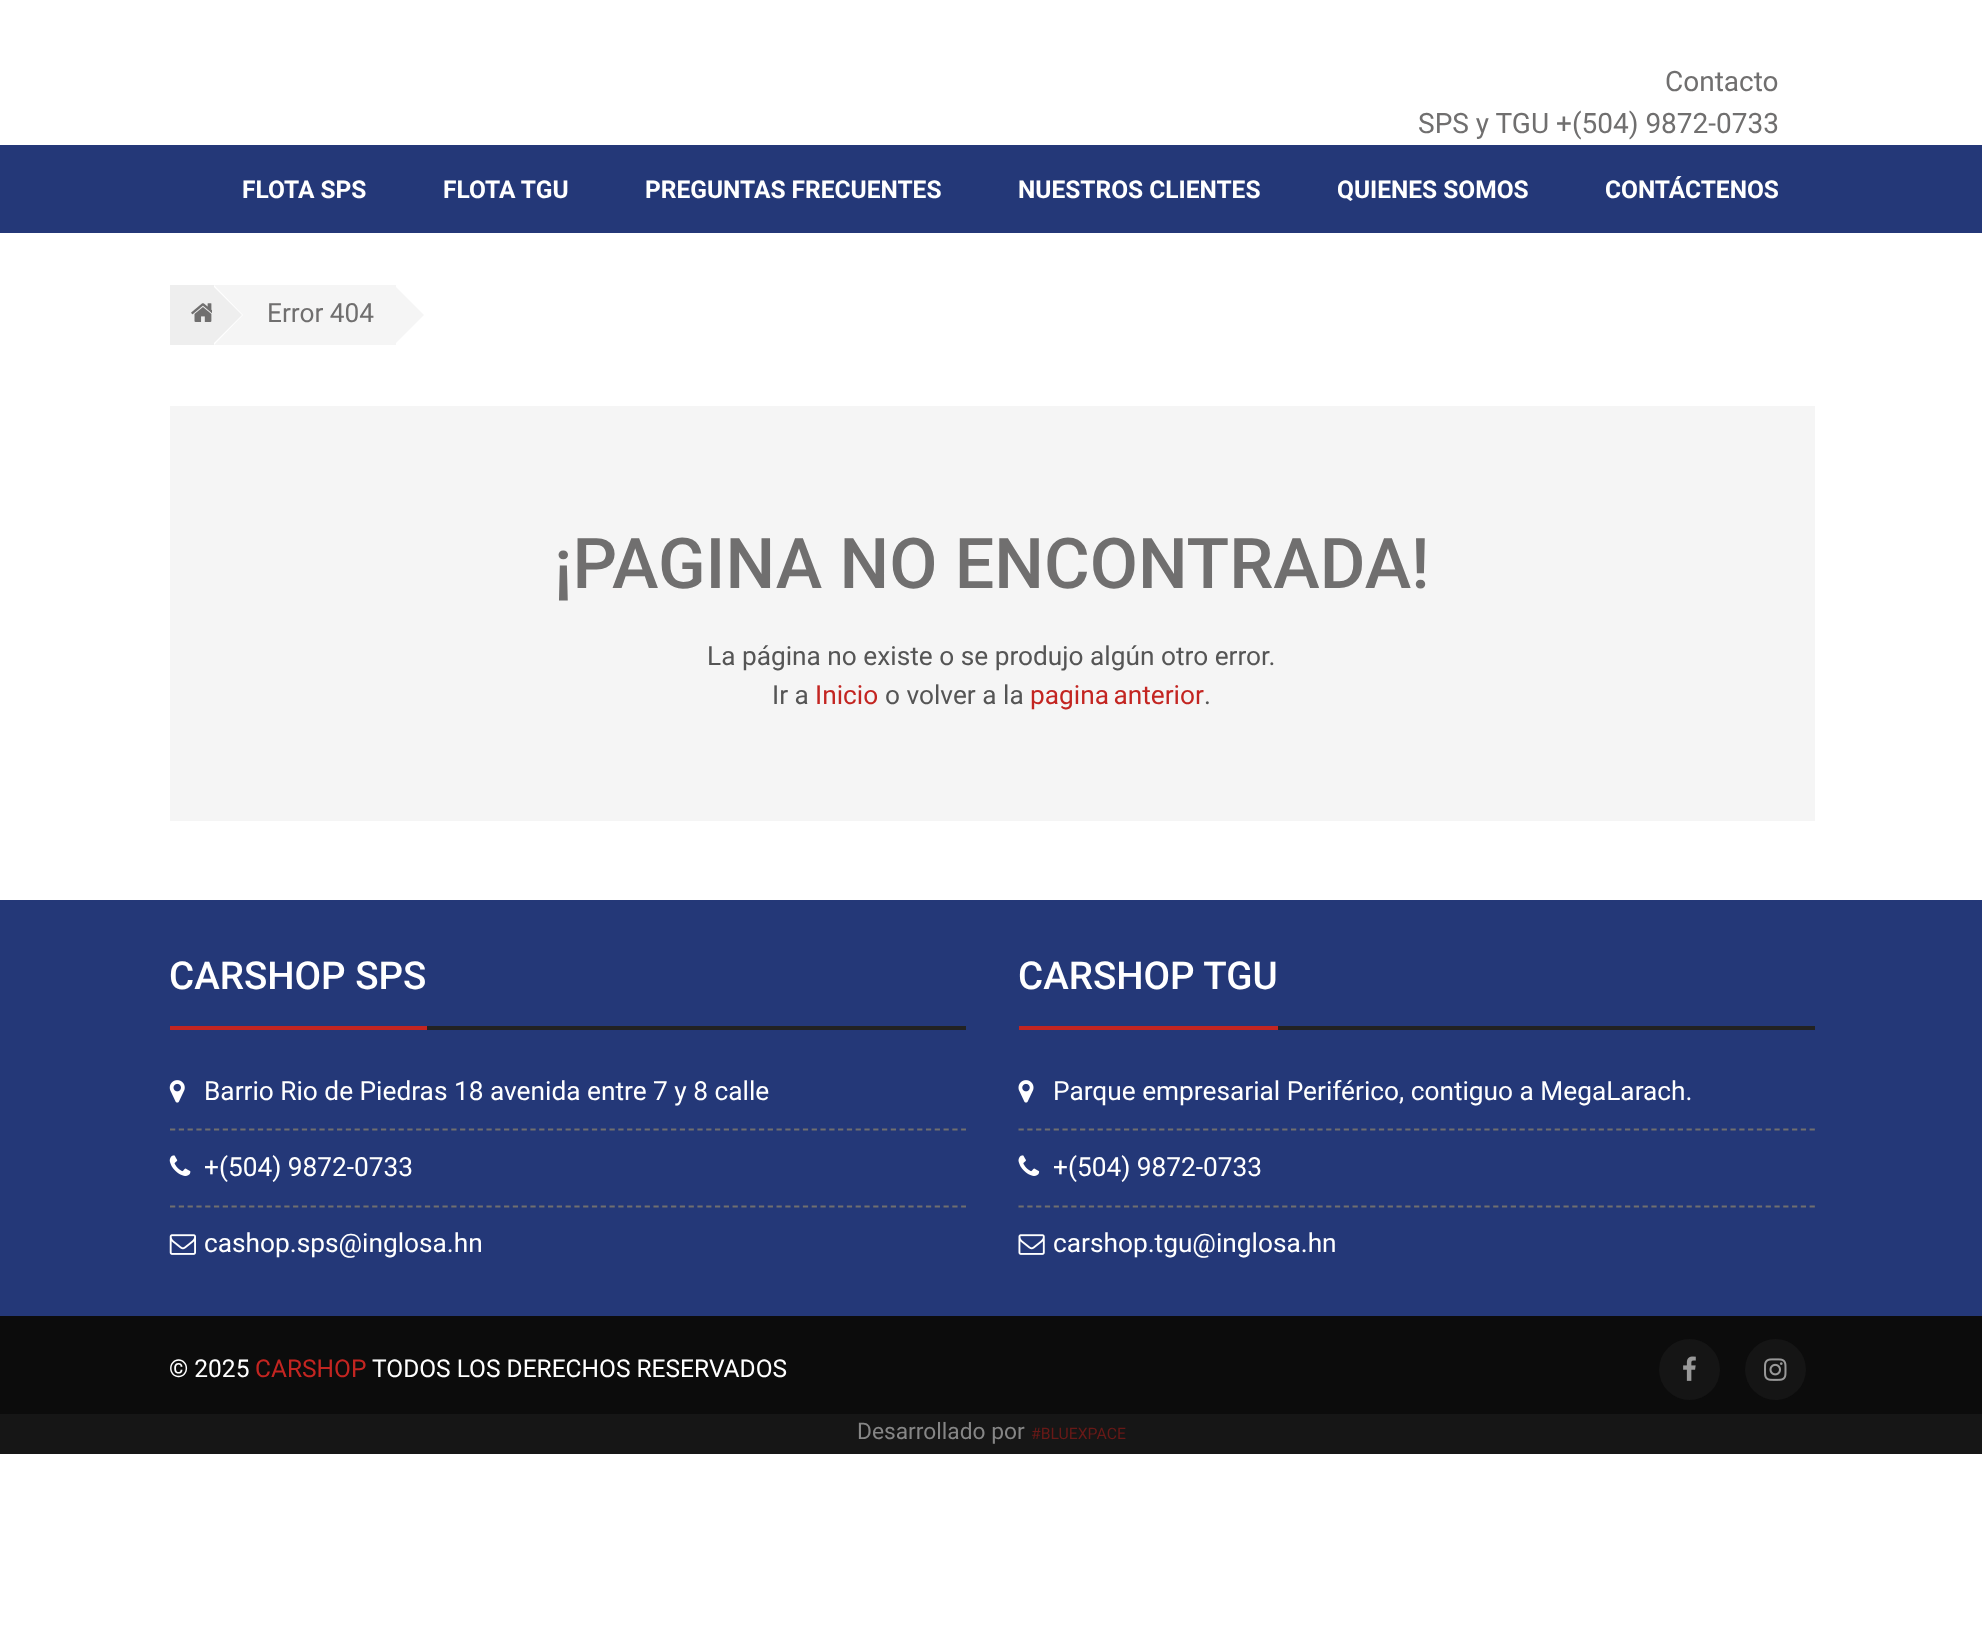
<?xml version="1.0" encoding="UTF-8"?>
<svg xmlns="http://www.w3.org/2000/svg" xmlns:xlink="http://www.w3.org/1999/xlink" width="1982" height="1643">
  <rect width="100%" height="100%" fill="#ffffff" />
  <rect y="145" width="1982" height="88" fill="#243878" />
  <rect x="170" y="285" width="44" height="60" fill="#eeeeee" />
  <rect x="214" y="285" width="182" height="60" fill="#f5f5f5" />
  <path d="M 214 345 v -60 l 29 30 z" fill="#ffffff" />
  <path d="M 212 345 v -60 l 30 30 z" fill="#eeeeee" />
  <image x="191" y="303" width="21" height="19" xlink:href="image1.png" />
  <path d="M 394 345 v -60 l 30 30 z" fill="#f5f5f5" />
  <rect x="170" y="406" width="1645" height="415" fill="#f5f5f5" />
  <rect y="900" width="1982" height="416" fill="#243878" />
  <rect x="427" y="1026" width="539" height="4" fill="#222222" />
  <rect x="170" y="1026" width="257" height="4" fill="#c32521" />
  <path d="M 170 1129.5 h 796" fill="none" stroke="#706f6f" stroke-width="1.8" stroke-dasharray="5.25 3.54" />
  <image x="169" y="1080" width="16" height="23" xlink:href="image2.png" />
  <path d="M 170 1206.5 h 796" fill="none" stroke="#706f6f" stroke-width="1.8" stroke-dasharray="5.25 3.54" />
  <image x="169" y="1155" width="22" height="21" xlink:href="image3.png" />
  <image x="169" y="1234" width="27" height="21" xlink:href="image4.png" />
  <rect x="1278" y="1026" width="537" height="4" fill="#222222" />
  <rect x="1019" y="1026" width="259" height="4" fill="#c32521" />
  <path d="M 1018.5 1129.5 h 796.5" fill="none" stroke="#706f6f" stroke-width="1.8" stroke-dasharray="5.25 3.54" />
  <image x="1018" y="1080" width="16" height="23" xlink:href="image5.png" />
  <path d="M 1018.5 1206.5 h 796.5" fill="none" stroke="#706f6f" stroke-width="1.8" stroke-dasharray="5.25 3.54" />
  <image x="1018" y="1155" width="22" height="21" xlink:href="image6.png" />
  <image x="1018" y="1234" width="27" height="21" xlink:href="image7.png" />
  <rect y="1316" width="1982" height="98" fill="#0c0c0c" />
  <circle cx="1689.5" cy="1369.5" r="30.5" fill="#151515" />
  <image x="1683" y="1356" width="13" height="25" xlink:href="image8.png" />
  <circle cx="1775.5" cy="1369.5" r="30.5" fill="#151515" />
  <image x="1764" y="1358" width="23" height="23" xlink:href="image9.png" />
  <rect y="1414" width="1982" height="40" fill="#161616" />
  <text x="1665" y="91" style="font-family: Roboto; font-size: 28px; fill: #706f6f">Contacto</text>
  <text x="1418" y="133" style="font-family: Roboto; font-size: 28px; fill: #706f6f">SPS y TGU +(504) 9872-0733</text>
  <text x="242" y="198" style="font-family: Roboto; font-size: 24.5px; font-weight: bold; fill: #ffffff">FLOTA SPS</text>
  <text x="443" y="198" style="font-family: Roboto; font-size: 24.5px; font-weight: bold; fill: #ffffff">FLOTA TGU</text>
  <text x="645" y="198" style="font-family: Roboto; font-size: 24.5px; font-weight: bold; fill: #ffffff">PREGUNTAS FRECUENTES</text>
  <text x="1018" y="198" style="font-family: Roboto; font-size: 24.5px; font-weight: bold; fill: #ffffff">NUESTROS CLIENTES</text>
  <text x="1337" y="198" style="font-family: Roboto; font-size: 24.5px; font-weight: bold; fill: #ffffff">QUIENES SOMOS</text>
  <text x="1605" y="198" style="font-family: Roboto; font-size: 24.5px; font-weight: bold; fill: #ffffff">CONTÁCTENOS</text>
  <text x="267" y="322" style="font-family: Roboto; font-size: 26.25px; fill: #706f6f">Error 404</text>
  <text x="554" y="588" style="font-family: Roboto; font-size: 70px; font-weight: 500; fill: #706f6f">¡PAGINA NO ENCONTRADA!</text>
  <text x="707" y="665" style="font-family: Roboto; font-size: 26.25px; fill: #555555">La página no existe o se produjo algún otro error.</text>
  <text x="772" y="704" style="font-family: Roboto; font-size: 26.25px; fill: #555555">Ir a</text>
  <text x="815" y="704" style="font-family: Roboto; font-size: 26.25px; fill: #c32521">Inicio</text>
  <text x="885" y="704" style="font-family: Roboto; font-size: 26.25px; fill: #555555">o volver a la</text>
  <text x="1030" y="704" word-spacing="-2" style="font-family: Roboto; font-size: 26.25px; fill: #c32521">pagina anterior</text>
  <text x="1204" y="704" style="font-family: Roboto; font-size: 26.25px; fill: #555555">.</text>
  <text x="169" y="989" style="font-family: Roboto; font-size: 38.5px; font-weight: 500; fill: #ffffff">CARSHOP SPS</text>
  <text x="204" y="1100" style="font-family: Roboto; font-size: 26.25px; fill: #ffffff">Barrio Rio de Piedras 18 avenida entre 7 y 8 calle</text>
  <text x="204" y="1176" style="font-family: Roboto; font-size: 26.25px; fill: #ffffff">+(504) 9872-0733</text>
  <text x="204" y="1252" style="font-family: Roboto; font-size: 26.25px; fill: #ffffff">cashop.sps@inglosa.hn</text>
  <text x="1018" y="989" style="font-family: Roboto; font-size: 38.5px; font-weight: 500; fill: #ffffff">CARSHOP TGU</text>
  <text x="1053" y="1100" style="font-family: Roboto; font-size: 26.25px; fill: #ffffff">Parque empresarial Periférico, contiguo a MegaLarach.</text>
  <text x="1053" y="1176" style="font-family: Roboto; font-size: 26.25px; fill: #ffffff">+(504) 9872-0733</text>
  <text x="1053" y="1252" style="font-family: Roboto; font-size: 26.25px; fill: #ffffff">carshop.tgu@inglosa.hn</text>
  <text x="169" y="1377" style="font-family: Roboto; font-size: 24.5px; fill: #ffffff">© 2025</text>
  <text x="255" y="1377" style="font-family: Roboto; font-size: 24.5px; fill: #c32521">CARSHOP</text>
  <text x="372" y="1377" style="font-family: Roboto; font-size: 24.5px; fill: #ffffff">TODOS LOS DERECHOS RESERVADOS</text>
  <text x="857" y="1439" style="font-family: Roboto; font-size: 22.75px; fill: #868686">Desarrollado por</text>
  <text x="1031" y="1439" style="font-family: Roboto; font-size: 15.75px; fill: #681917">#BLUEXPACE</text>
</svg>
